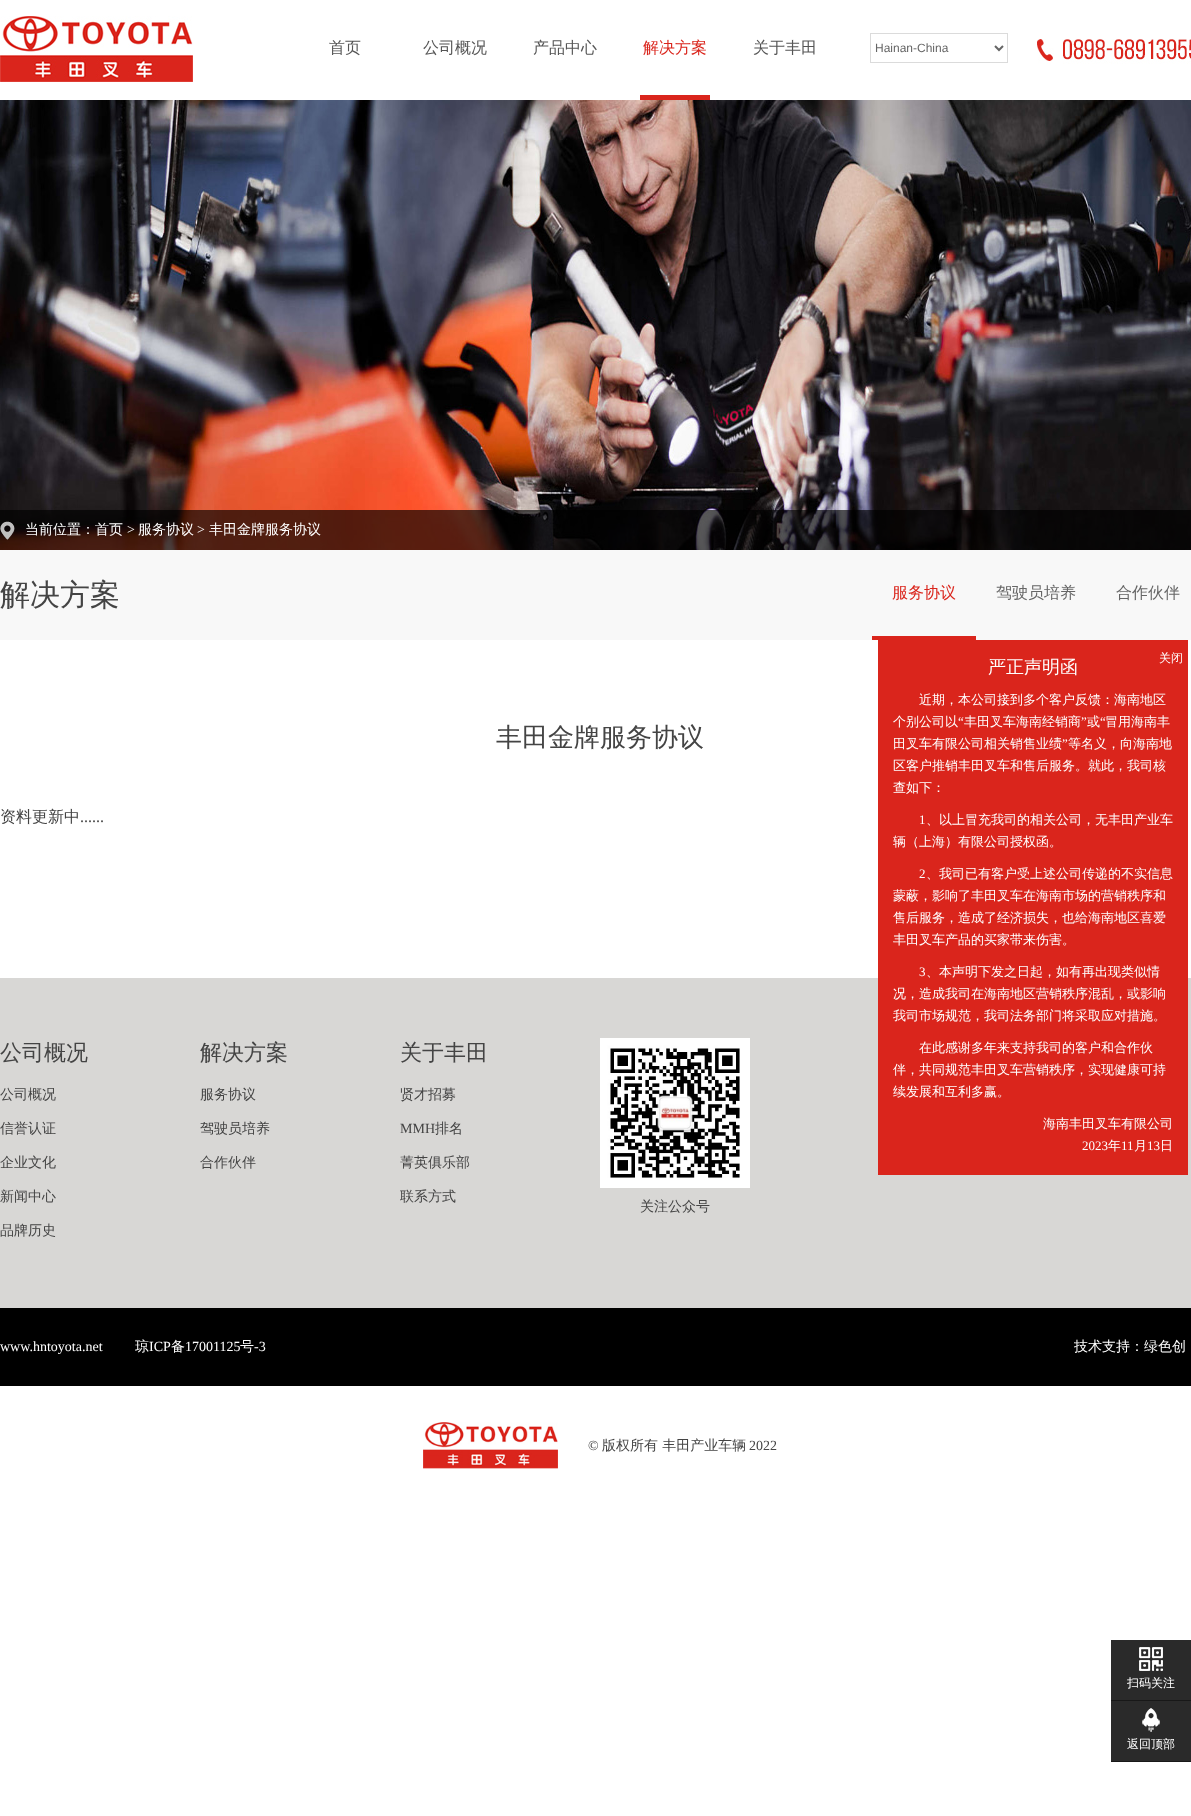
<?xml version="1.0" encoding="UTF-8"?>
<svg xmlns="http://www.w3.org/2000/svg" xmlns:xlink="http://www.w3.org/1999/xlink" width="1191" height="1816">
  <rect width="100%" height="100%" fill="#ffffff" />
  <image x="0" y="16" width="195" height="66" xlink:href="image1.png" />
  <rect x="640" y="95" width="70" height="5" fill="#da251c" />
  <rect x="870.5" y="33.5" width="137" height="29" fill="none" stroke="#dbdbdb" />
  <path d="M 995 46 l 4 4 l 4 -4" fill="none" stroke="#666666" stroke-width="2" />
  <image x="1037" y="39" width="154" height="25" xlink:href="image2.png" />
  <image x="0" y="100" width="1191" height="450" xlink:href="image3.png" />
  <rect y="510" width="1191" height="40" fill="#000000" fill-opacity="0.65" />
  <image x="0" y="521" width="15" height="19" xlink:href="image4.png" />
  <rect y="550" width="1191" height="90" fill="#f8f8f8" />
  <rect x="872" y="636" width="104" height="4" fill="#da251c" />
  <rect y="978" width="1191" height="330" fill="#d8d7d5" />
  <rect x="878" y="640" width="310" height="535" fill="#da251c" />
  <image x="600" y="1038" width="150" height="150" xlink:href="image5.png" />
  <rect y="1308" width="1191" height="78" fill="#000000" />
  <image x="423" y="1422" width="135" height="47" xlink:href="image6.png" />
  <rect x="1111" y="1640" width="80" height="60" fill="#2a2a2a" />
  <image x="1139" y="1647" width="24" height="24" xlink:href="image7.png" />
  <rect x="1111" y="1700" width="80" height="1" fill="#181818" />
  <rect x="1111" y="1701" width="80" height="60" fill="#2a2a2a" />
  <image x="1142" y="1708" width="18" height="24" xlink:href="image8.png" />
  <rect x="1111" y="1761" width="80" height="1" fill="#181818" />
  <text x="329" y="53" style="font-family: WenQuanYi Zen Hei; font-size: 16px; font-weight: 500; fill: #555555">首页</text>
  <text x="423" y="53" style="font-family: WenQuanYi Zen Hei; font-size: 16px; font-weight: 500; fill: #555555">公司概况</text>
  <text x="533" y="53" style="font-family: WenQuanYi Zen Hei; font-size: 16px; font-weight: 500; fill: #555555">产品中心</text>
  <text x="643" y="53" style="font-family: WenQuanYi Zen Hei; font-size: 16px; font-weight: 500; fill: #da251c">解决方案</text>
  <text x="753" y="53" style="font-family: WenQuanYi Zen Hei; font-size: 16px; font-weight: 500; fill: #555555">关于丰田</text>
  <text x="875" y="52" style="font-family: Liberation Sans; font-size: 12px; fill: #666666">Hainan-China</text>
  <text x="25" y="534" style="font-family: WenQuanYi Zen Hei; font-size: 14px; font-weight: 500; fill: #ffffff">当前位置：首页</text>
  <text x="127" y="534" style="font-family: Liberation Serif; font-size: 14px; fill: #ffffff">&gt;</text>
  <text x="138" y="534" style="font-family: WenQuanYi Zen Hei; font-size: 14px; font-weight: 500; fill: #ffffff">服务协议</text>
  <text x="197" y="534" style="font-family: Liberation Serif; font-size: 14px; fill: #ffffff">&gt;</text>
  <text x="209" y="534" style="font-family: WenQuanYi Zen Hei; font-size: 14px; font-weight: 500; fill: #ffffff">丰田金牌服务协议</text>
  <text x="0" y="605" style="font-family: WenQuanYi Zen Hei; font-size: 30px; font-weight: 500; fill: #444444">解决方案</text>
  <text x="892" y="598" style="font-family: WenQuanYi Zen Hei; font-size: 16px; font-weight: 500; fill: #da251c">服务协议</text>
  <text x="996" y="598" style="font-family: WenQuanYi Zen Hei; font-size: 16px; font-weight: 500; fill: #666666">驾驶员培养</text>
  <text x="1116" y="598" style="font-family: WenQuanYi Zen Hei; font-size: 16px; font-weight: 500; fill: #666666">合作伙伴</text>
  <text x="496" y="746" style="font-family: WenQuanYi Zen Hei; font-size: 26px; font-weight: 500; fill: #444444">丰田金牌服务协议</text>
  <text x="0" y="822" style="font-family: WenQuanYi Zen Hei; font-size: 16px; font-weight: 500; fill: #444444">资料更新中</text>
  <text x="80" y="822" style="font-family: Liberation Serif; font-size: 16px; fill: #444444">......</text>
  <text x="988" y="673" style="font-family: WenQuanYi Zen Hei; font-size: 18px; font-weight: 500; fill: #ffffff">严正声明函</text>
  <text x="1159" y="662" style="font-family: WenQuanYi Zen Hei; font-size: 12px; font-weight: 500; fill: #ffffff">关闭</text>
  <text x="919" y="704" style="font-family: WenQuanYi Zen Hei; font-size: 13px; font-weight: 500; fill: #ffffff">近期，本公司接到多个客户反馈：海南地区</text>
  <text x="893" y="726" style="font-family: WenQuanYi Zen Hei; font-size: 13px; font-weight: 500; fill: #ffffff">个别公司以</text>
  <text x="958" y="726" style="font-family: Liberation Serif; font-size: 13px; fill: #ffffff">“</text>
  <text x="964" y="726" style="font-family: WenQuanYi Zen Hei; font-size: 13px; font-weight: 500; fill: #ffffff">丰田叉车海南经销商</text>
  <text x="1081" y="726" style="font-family: Liberation Serif; font-size: 13px; fill: #ffffff">”</text>
  <text x="1087" y="726" style="font-family: WenQuanYi Zen Hei; font-size: 13px; font-weight: 500; fill: #ffffff">或</text>
  <text x="1100" y="726" style="font-family: Liberation Serif; font-size: 13px; fill: #ffffff">“</text>
  <text x="1105" y="726" style="font-family: WenQuanYi Zen Hei; font-size: 13px; font-weight: 500; fill: #ffffff">冒用海南丰</text>
  <text x="893" y="748" style="font-family: WenQuanYi Zen Hei; font-size: 13px; font-weight: 500; fill: #ffffff">田叉车有限公司相关销售业绩</text>
  <text x="1062" y="748" style="font-family: Liberation Serif; font-size: 13px; fill: #ffffff">”</text>
  <text x="1068" y="748" style="font-family: WenQuanYi Zen Hei; font-size: 13px; font-weight: 500; fill: #ffffff">等名义，向海南地</text>
  <text x="893" y="770" style="font-family: WenQuanYi Zen Hei; font-size: 13px; font-weight: 500; fill: #ffffff">区客户推销丰田叉车和售后服务。就此，我司核</text>
  <text x="893" y="792" style="font-family: WenQuanYi Zen Hei; font-size: 13px; font-weight: 500; fill: #ffffff">查如下：</text>
  <text x="919" y="824" style="font-family: Liberation Serif; font-size: 13px; fill: #ffffff">1</text>
  <text x="926" y="824" style="font-family: WenQuanYi Zen Hei; font-size: 13px; font-weight: 500; fill: #ffffff">、以上冒充我司的相关公司，无丰田产业车</text>
  <text x="893" y="846" style="font-family: WenQuanYi Zen Hei; font-size: 13px; font-weight: 500; fill: #ffffff">辆（上海）有限公司授权函。</text>
  <text x="919" y="878" style="font-family: Liberation Serif; font-size: 13px; fill: #ffffff">2</text>
  <text x="926" y="878" style="font-family: WenQuanYi Zen Hei; font-size: 13px; font-weight: 500; fill: #ffffff">、我司已有客户受上述公司传递的不实信息</text>
  <text x="893" y="900" style="font-family: WenQuanYi Zen Hei; font-size: 13px; font-weight: 500; fill: #ffffff">蒙蔽，影响了丰田叉车在海南市场的营销秩序和</text>
  <text x="893" y="922" style="font-family: WenQuanYi Zen Hei; font-size: 13px; font-weight: 500; fill: #ffffff">售后服务，造成了经济损失，也给海南地区喜爱</text>
  <text x="893" y="944" style="font-family: WenQuanYi Zen Hei; font-size: 13px; font-weight: 500; fill: #ffffff">丰田叉车产品的买家带来伤害。</text>
  <text x="919" y="976" style="font-family: Liberation Serif; font-size: 13px; fill: #ffffff">3</text>
  <text x="926" y="976" style="font-family: WenQuanYi Zen Hei; font-size: 13px; font-weight: 500; fill: #ffffff">、本声明下发之日起，如有再出现类似情</text>
  <text x="893" y="998" style="font-family: WenQuanYi Zen Hei; font-size: 13px; font-weight: 500; fill: #ffffff">况，造成我司在海南地区营销秩序混乱，或影响</text>
  <text x="893" y="1020" style="font-family: WenQuanYi Zen Hei; font-size: 13px; font-weight: 500; fill: #ffffff">我司市场规范，我司法务部门将采取应对措施。</text>
  <text x="919" y="1052" style="font-family: WenQuanYi Zen Hei; font-size: 13px; font-weight: 500; fill: #ffffff">在此感谢多年来支持我司的客户和合作伙</text>
  <text x="893" y="1074" style="font-family: WenQuanYi Zen Hei; font-size: 13px; font-weight: 500; fill: #ffffff">伴，共同规范丰田叉车营销秩序，实现健康可持</text>
  <text x="893" y="1096" style="font-family: WenQuanYi Zen Hei; font-size: 13px; font-weight: 500; fill: #ffffff">续发展和互利多赢。</text>
  <text x="1043" y="1128" style="font-family: WenQuanYi Zen Hei; font-size: 13px; font-weight: 500; fill: #ffffff">海南丰田叉车有限公司</text>
  <text x="1082" y="1150" style="font-family: Liberation Serif; font-size: 13px; fill: #ffffff">2023</text>
  <text x="1108" y="1150" style="font-family: WenQuanYi Zen Hei; font-size: 13px; font-weight: 500; fill: #ffffff">年</text>
  <text x="1121" y="1150" style="font-family: Liberation Serif; font-size: 13px; fill: #ffffff">11</text>
  <text x="1134" y="1150" style="font-family: WenQuanYi Zen Hei; font-size: 13px; font-weight: 500; fill: #ffffff">月</text>
  <text x="1147" y="1150" style="font-family: Liberation Serif; font-size: 13px; fill: #ffffff">13</text>
  <text x="1160" y="1150" style="font-family: WenQuanYi Zen Hei; font-size: 13px; font-weight: 500; fill: #ffffff">日</text>
  <text x="0" y="1060" style="font-family: WenQuanYi Zen Hei; font-size: 22px; font-weight: 500; fill: #444444">公司概况</text>
  <text x="0" y="1099" style="font-family: WenQuanYi Zen Hei; font-size: 14px; font-weight: 500; fill: #444444">公司概况</text>
  <text x="0" y="1133" style="font-family: WenQuanYi Zen Hei; font-size: 14px; font-weight: 500; fill: #444444">信誉认证</text>
  <text x="0" y="1167" style="font-family: WenQuanYi Zen Hei; font-size: 14px; font-weight: 500; fill: #444444">企业文化</text>
  <text x="0" y="1201" style="font-family: WenQuanYi Zen Hei; font-size: 14px; font-weight: 500; fill: #444444">新闻中心</text>
  <text x="0" y="1235" style="font-family: WenQuanYi Zen Hei; font-size: 14px; font-weight: 500; fill: #444444">品牌历史</text>
  <text x="200" y="1060" style="font-family: WenQuanYi Zen Hei; font-size: 22px; font-weight: 500; fill: #444444">解决方案</text>
  <text x="200" y="1099" style="font-family: WenQuanYi Zen Hei; font-size: 14px; font-weight: 500; fill: #444444">服务协议</text>
  <text x="200" y="1133" style="font-family: WenQuanYi Zen Hei; font-size: 14px; font-weight: 500; fill: #444444">驾驶员培养</text>
  <text x="200" y="1167" style="font-family: WenQuanYi Zen Hei; font-size: 14px; font-weight: 500; fill: #444444">合作伙伴</text>
  <text x="400" y="1060" style="font-family: WenQuanYi Zen Hei; font-size: 22px; font-weight: 500; fill: #444444">关于丰田</text>
  <text x="400" y="1099" style="font-family: WenQuanYi Zen Hei; font-size: 14px; font-weight: 500; fill: #444444">贤才招募</text>
  <text x="400" y="1133" style="font-family: Liberation Serif; font-size: 14px; fill: #444444">MMH</text>
  <text x="435" y="1133" style="font-family: WenQuanYi Zen Hei; font-size: 14px; font-weight: 500; fill: #444444">排名</text>
  <text x="400" y="1167" style="font-family: WenQuanYi Zen Hei; font-size: 14px; font-weight: 500; fill: #444444">菁英俱乐部</text>
  <text x="400" y="1201" style="font-family: WenQuanYi Zen Hei; font-size: 14px; font-weight: 500; fill: #444444">联系方式</text>
  <text x="640" y="1211" style="font-family: WenQuanYi Zen Hei; font-size: 14px; font-weight: 500; fill: #444444">关注公众号</text>
  <text x="0" y="1351" style="font-family: Liberation Serif; font-size: 14px; fill: #ffffff">www.hntoyota.net</text>
  <text x="135" y="1351" style="font-family: WenQuanYi Zen Hei; font-size: 14px; font-weight: 500; fill: #ffffff">琼</text>
  <text x="149" y="1351" style="font-family: Liberation Serif; font-size: 14px; fill: #ffffff">ICP</text>
  <text x="171" y="1351" style="font-family: WenQuanYi Zen Hei; font-size: 14px; font-weight: 500; fill: #ffffff">备</text>
  <text x="185" y="1351" style="font-family: Liberation Serif; font-size: 14px; fill: #ffffff">17001125</text>
  <text x="240" y="1351" style="font-family: WenQuanYi Zen Hei; font-size: 14px; font-weight: 500; fill: #ffffff">号</text>
  <text x="254" y="1351" style="font-family: Liberation Serif; font-size: 14px; fill: #ffffff">-3</text>
  <text x="1074" y="1351" style="font-family: WenQuanYi Zen Hei; font-size: 14px; font-weight: 500; fill: #ffffff">技术支持：绿色创</text>
  <text x="588" y="1450" style="font-family: Liberation Serif; font-size: 14px; fill: #444444">©</text>
  <text x="602" y="1450" style="font-family: WenQuanYi Zen Hei; font-size: 14px; font-weight: 500; fill: #444444">版权所有 丰田产业车辆</text>
  <text x="749" y="1450" style="font-family: Liberation Serif; font-size: 14px; fill: #444444">2022</text>
  <text x="1127" y="1687" style="font-family: WenQuanYi Zen Hei; font-size: 12px; font-weight: 500; fill: #ffffff">扫码关注</text>
  <text x="1127" y="1748" style="font-family: WenQuanYi Zen Hei; font-size: 12px; font-weight: 500; fill: #ffffff">返回顶部</text>
</svg>
